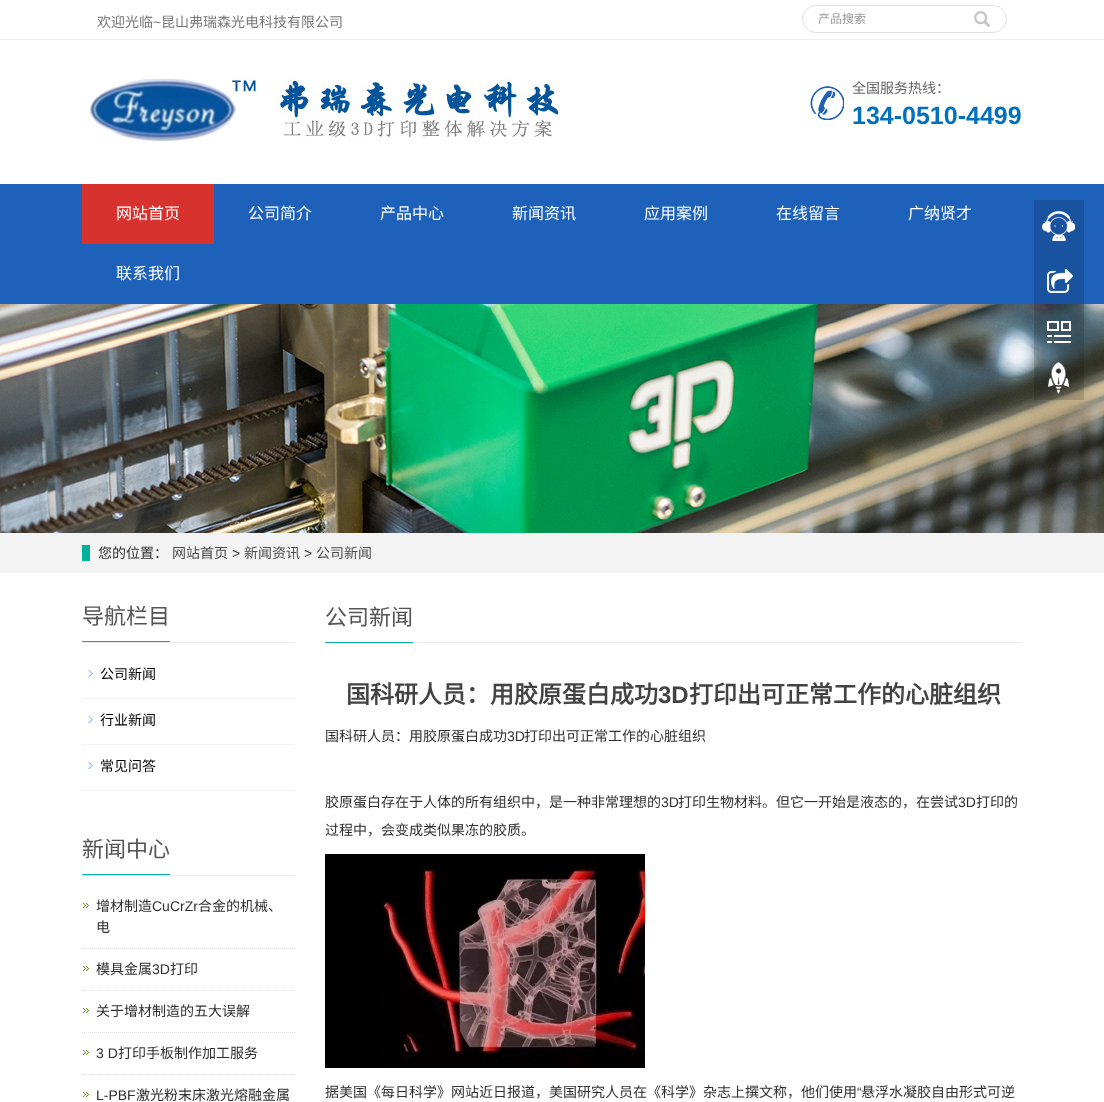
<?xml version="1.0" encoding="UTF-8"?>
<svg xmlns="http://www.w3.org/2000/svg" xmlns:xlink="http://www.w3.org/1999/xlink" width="1104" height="1102">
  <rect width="100%" height="100%" fill="#ffffff" />
  <rect y="39" width="1104" height="1" fill="#efefef" />
  <rect x="802.5" y="5.5" width="204" height="27" rx="13.5" fill="none" stroke="#dfe1e3" />
  <image x="974" y="11" width="16" height="16" xlink:href="image1.png" />
  <image x="90" y="75" width="472" height="66" xlink:href="image2.png" />
  <image x="810" y="86" width="34" height="34" xlink:href="image3.png" />
  <rect y="184" width="1104" height="120" fill="#1e61ba" />
  <rect x="82" y="184" width="132" height="60" fill="#d7322e" />
  <image x="0" y="304" width="1104" height="229" xlink:href="image5.png" />
  <image x="1034" y="200" width="50" height="200" xlink:href="image4.png" />
  <rect y="533" width="1104" height="40" fill="#f3f3f3" />
  <rect x="82" y="545" width="8" height="16" fill="#02b29c" />
  <rect x="82" y="642" width="213" height="1" fill="#ebebeb" />
  <rect x="82" y="641" width="88" height="1" fill="#02b29c" />
  <image x="88" y="670" width="5" height="7" xlink:href="image6.png" />
  <rect x="82" y="698" width="213" height="1" fill="#f2f2f2" />
  <image x="88" y="716" width="5" height="7" xlink:href="image6.png" />
  <rect x="82" y="744" width="213" height="1" fill="#f2f2f2" />
  <image x="88" y="762" width="5" height="7" xlink:href="image6.png" />
  <rect x="82" y="790" width="213" height="1" fill="#f2f2f2" />
  <rect x="82" y="875" width="213" height="1" fill="#ebebeb" />
  <rect x="82" y="874" width="88" height="1" fill="#02b29c" />
  <image x="83" y="903" width="6" height="5" xlink:href="image7.png" />
  <path d="M 82 948.5 h 213" fill="none" stroke="#dddddd" stroke-dasharray="1 1" />
  <image x="83" y="966" width="6" height="5" xlink:href="image7.png" />
  <path d="M 82 990.5 h 213" fill="none" stroke="#dddddd" stroke-dasharray="1 1" />
  <image x="83" y="1008" width="6" height="5" xlink:href="image7.png" />
  <path d="M 82 1032.5 h 213" fill="none" stroke="#dddddd" stroke-dasharray="1 1" />
  <image x="83" y="1050" width="6" height="5" xlink:href="image7.png" />
  <path d="M 82 1074.5 h 213" fill="none" stroke="#dddddd" stroke-dasharray="1 1" />
  <image x="83" y="1092" width="6" height="5" xlink:href="image7.png" />
  <rect x="413" y="642" width="609" height="1" fill="#ebebeb" />
  <rect x="325" y="642" width="88" height="1" fill="#02b29c" />
  <image x="325" y="854" width="320" height="214" xlink:href="image8.png" />
  <text x="97" y="27" style="font-family: Noto Sans CJK SC; font-size: 14px; fill: #777777">欢迎光临</text>
  <text x="153" y="27" style="font-family: Liberation Sans; font-size: 14px; fill: #777777">~</text>
  <text x="161" y="27" style="font-family: Noto Sans CJK SC; font-size: 14px; fill: #777777">昆山弗瑞森光电科技有限公司</text>
  <text x="818" y="23" style="font-family: Noto Sans CJK SC; font-size: 12px; fill: #999999">产品搜索</text>
  <text x="852" y="93" style="font-family: Noto Sans CJK SC; font-size: 14px; fill: #666666">全国服务热线：</text>
  <text x="852" y="124" style="font-family: Liberation Sans; font-size: 25px; font-weight: bold; fill: #0071be">134-0510-4499</text>
  <text x="116" y="219" style="font-family: Noto Sans CJK SC; font-size: 16px; fill: #ffffff">网站首页</text>
  <text x="248" y="219" style="font-family: Noto Sans CJK SC; font-size: 16px; fill: #ffffff">公司简介</text>
  <text x="380" y="219" style="font-family: Noto Sans CJK SC; font-size: 16px; fill: #ffffff">产品中心</text>
  <text x="512" y="219" style="font-family: Noto Sans CJK SC; font-size: 16px; fill: #ffffff">新闻资讯</text>
  <text x="644" y="219" style="font-family: Noto Sans CJK SC; font-size: 16px; fill: #ffffff">应用案例</text>
  <text x="776" y="219" style="font-family: Noto Sans CJK SC; font-size: 16px; fill: #ffffff">在线留言</text>
  <text x="908" y="219" style="font-family: Noto Sans CJK SC; font-size: 16px; fill: #ffffff">广纳贤才</text>
  <text x="116" y="279" style="font-family: Noto Sans CJK SC; font-size: 16px; fill: #ffffff">联系我们</text>
  <text x="98" y="558" style="font-family: Noto Sans CJK SC; font-size: 14px; fill: #2f2f2f">您的位置：</text>
  <text x="172" y="558" style="font-family: Noto Sans CJK SC; font-size: 14px; fill: #4c4c4c">网站首页</text>
  <text x="232" y="558" style="font-family: Liberation Sans; font-size: 14px; fill: #2f2f2f">&gt;</text>
  <text x="244" y="558" style="font-family: Noto Sans CJK SC; font-size: 14px; fill: #4c4c4c">新闻资讯</text>
  <text x="304" y="558" style="font-family: Liberation Sans; font-size: 14px; fill: #2f2f2f">&gt;</text>
  <text x="316" y="558" style="font-family: Noto Sans CJK SC; font-size: 14px; fill: #4c4c4c">公司新闻</text>
  <text x="82" y="624" style="font-family: Noto Sans CJK SC; font-size: 22px; fill: #545454">导航栏目</text>
  <text x="100" y="679" style="font-family: Noto Sans CJK SC; font-size: 14px; fill: #000000">公司新闻</text>
  <text x="100" y="725" style="font-family: Noto Sans CJK SC; font-size: 14px; fill: #000000">行业新闻</text>
  <text x="100" y="771" style="font-family: Noto Sans CJK SC; font-size: 14px; fill: #000000">常见问答</text>
  <text x="82" y="857" style="font-family: Noto Sans CJK SC; font-size: 22px; fill: #545454">新闻中心</text>
  <text x="96" y="911" style="font-family: Noto Sans CJK SC; font-size: 14px; fill: #2f2f2f">增材制造</text>
  <text x="152" y="911" style="font-family: Liberation Sans; font-size: 14px; fill: #2f2f2f">CuCrZr</text>
  <text x="198" y="911" style="font-family: Noto Sans CJK SC; font-size: 14px; fill: #2f2f2f">合金的机械、</text>
  <text x="96" y="932" style="font-family: Noto Sans CJK SC; font-size: 14px; fill: #2f2f2f">电</text>
  <text x="96" y="974" style="font-family: Noto Sans CJK SC; font-size: 14px; fill: #2f2f2f">模具金属</text>
  <text x="152" y="974" style="font-family: Liberation Sans; font-size: 14px; fill: #2f2f2f">3D</text>
  <text x="170" y="974" style="font-family: Noto Sans CJK SC; font-size: 14px; fill: #2f2f2f">打印</text>
  <text x="96" y="1016" style="font-family: Noto Sans CJK SC; font-size: 14px; fill: #2f2f2f">关于增材制造的五大误解</text>
  <text x="96" y="1058" style="font-family: Liberation Sans; font-size: 14px; fill: #2f2f2f">3 D</text>
  <text x="118" y="1058" style="font-family: Noto Sans CJK SC; font-size: 14px; fill: #2f2f2f">打印手板制作加工服务</text>
  <text x="96" y="1100" style="font-family: Liberation Sans; font-size: 14px; fill: #2f2f2f">L-PBF</text>
  <text x="136" y="1100" style="font-family: Noto Sans CJK SC; font-size: 14px; fill: #2f2f2f">激光粉末床激光熔融金属</text>
  <text x="325" y="625" style="font-family: Noto Sans CJK SC; font-size: 22px; fill: #545454">公司新闻</text>
  <text x="346" y="703" style="font-family: Noto Sans CJK SC; font-size: 24px; font-weight: bold; fill: #434343">国科研人员：用胶原蛋白成功</text>
  <text x="658" y="703" style="font-family: Liberation Sans; font-size: 24px; font-weight: bold; fill: #434343">3D</text>
  <text x="689" y="703" style="font-family: Noto Sans CJK SC; font-size: 24px; font-weight: bold; fill: #434343">打印出可正常工作的心脏组织</text>
  <text x="325" y="741" style="font-family: Noto Sans CJK SC; font-size: 14px; fill: #2f2f2f">国科研人员：用胶原蛋白成功</text>
  <text x="507" y="741" style="font-family: Liberation Sans; font-size: 14px; fill: #2f2f2f">3D</text>
  <text x="524" y="741" style="font-family: Noto Sans CJK SC; font-size: 14px; fill: #2f2f2f">打印出可正常工作的心脏组织</text>
  <text x="325" y="807" style="font-family: Noto Sans CJK SC; font-size: 14px; fill: #2f2f2f">胶原蛋白存在于人体的所有组织中，是一种非常理想的</text>
  <text x="661" y="807" style="font-family: Liberation Sans; font-size: 14px; fill: #2f2f2f">3D</text>
  <text x="678" y="807" style="font-family: Noto Sans CJK SC; font-size: 14px; fill: #2f2f2f">打印生物材料。但它一开始是液态的，在尝试</text>
  <text x="958" y="807" style="font-family: Liberation Sans; font-size: 14px; fill: #2f2f2f">3D</text>
  <text x="976" y="807" style="font-family: Noto Sans CJK SC; font-size: 14px; fill: #2f2f2f">打印的</text>
  <text x="325" y="835" style="font-family: Noto Sans CJK SC; font-size: 14px; fill: #2f2f2f">过程中，会变成类似果冻的胶质。</text>
  <text x="325" y="1097" style="font-family: Noto Sans CJK SC; font-size: 14px; fill: #2f2f2f">据美国《每日科学》网站近日报道，美国研究人员在《科学》杂志上撰文称，他们使用</text>
  <text x="857" y="1097" style="font-family: Liberation Sans; font-size: 14px; fill: #2f2f2f">“</text>
  <text x="861" y="1097" style="font-family: Noto Sans CJK SC; font-size: 14px; fill: #2f2f2f">悬浮水凝胶自由形式可逆</text>
</svg>
